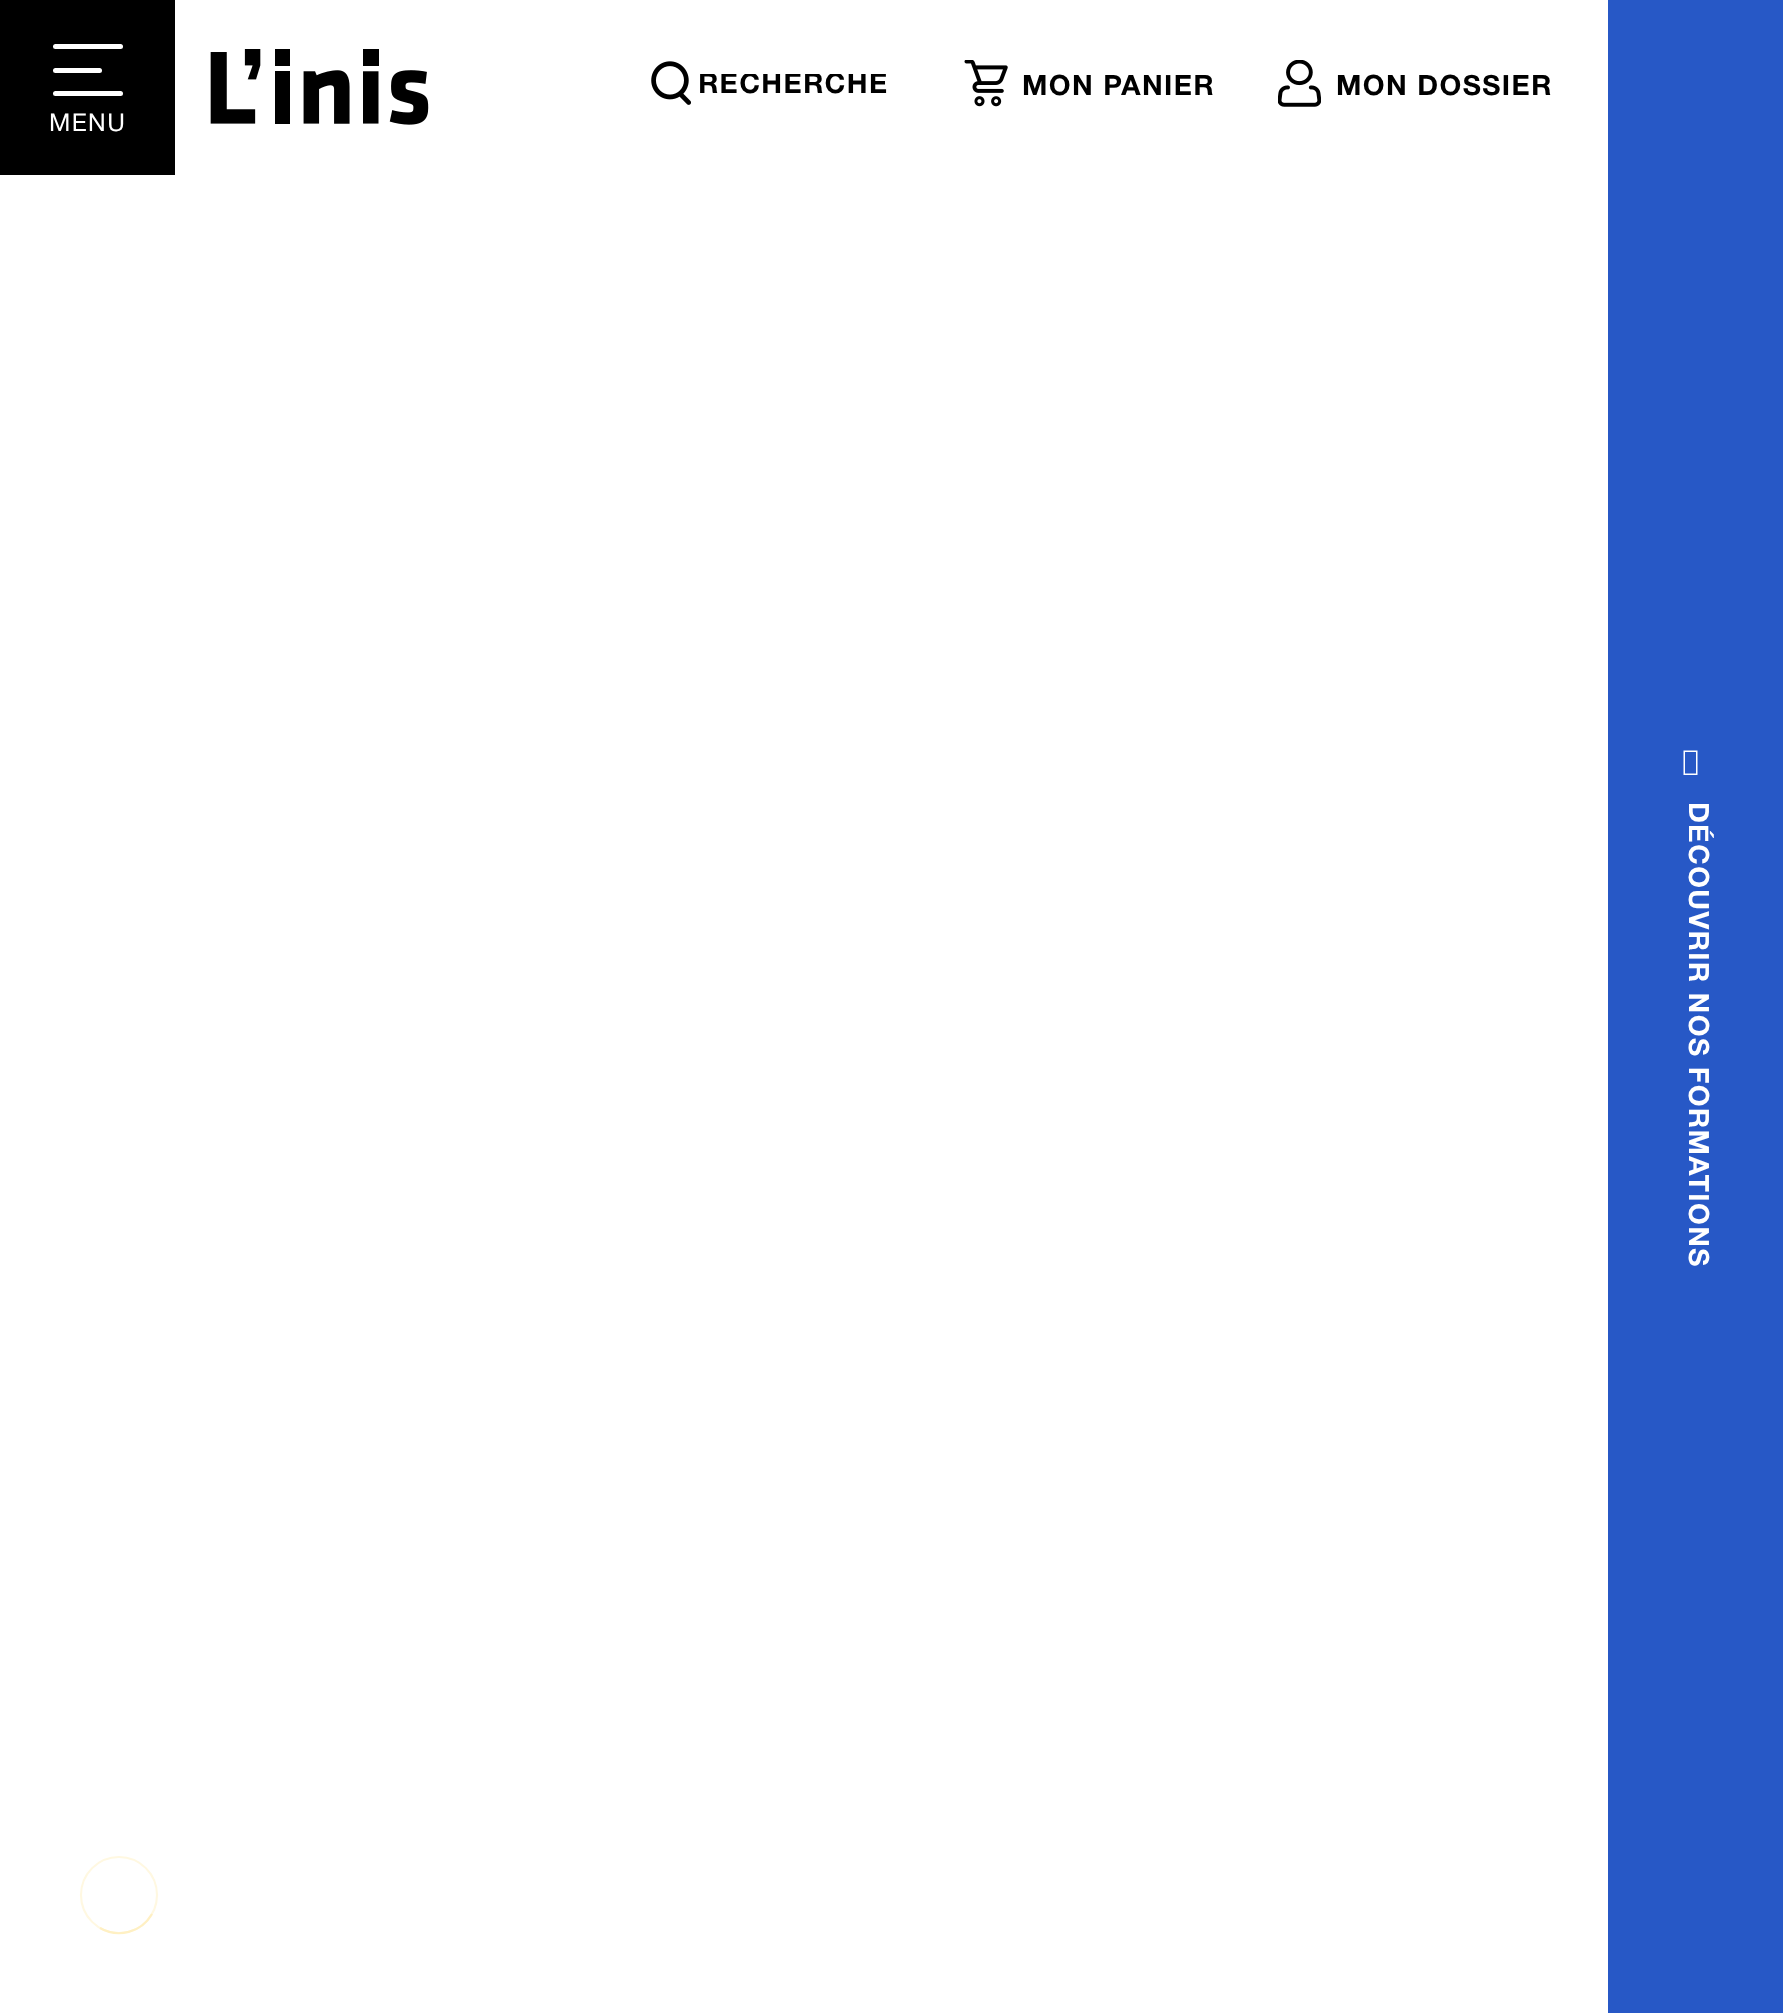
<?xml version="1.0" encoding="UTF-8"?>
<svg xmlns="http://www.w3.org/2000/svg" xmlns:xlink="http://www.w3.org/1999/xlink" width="1783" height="2013">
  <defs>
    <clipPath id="clip1"><rect x="698" y="74" width="191" height="26" /></clipPath>
  </defs>
  <rect width="100%" height="100%" fill="#ffffff" />
  <image x="210" y="49" width="219" height="76" xlink:href="image1.png" />
  <image x="651" y="61" width="40" height="44" xlink:href="image2.png" />
  <image x="964" y="60" width="44" height="47" xlink:href="image3.png" />
  <image x="1278" y="60" width="43" height="47" xlink:href="image4.png" />
  <rect width="175" height="175" fill="#000000" />
  <rect x="53" y="44" width="70" height="5" rx="2.5" fill="#ffffff" />
  <rect x="53" y="68" width="49" height="5" rx="2.5" fill="#ffffff" />
  <rect x="53" y="91" width="70" height="5" rx="2.5" fill="#ffffff" />
  <circle cx="119" cy="1895" r="38" fill="none" stroke="#fff8e1" stroke-width="2.1" />
  <path d="M 100 1928 c 18 10.5 41.5 4.5 52 -14" fill="none" stroke="#fff0c3" stroke-width="2.1" />
  <rect x="1608" width="175" height="2013" fill="#2758c6" />
  <path d="M 1683.5 775 v -24.5 h 14 v 24.5 z m 1.5 -1.5 h 11 v -21.5 h -11 z" fill="#ffffff" />
  <g clip-path="url(#clip1)">
    <text x="698" y="93" style="font-family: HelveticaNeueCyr; font-size: 28px; font-weight: bold; letter-spacing: 1.4px; fill: #000000">RECHERCHE</text>
  </g>
  <text x="1022" y="95" style="font-family: HelveticaNeueCyr; font-size: 28px; font-weight: bold; letter-spacing: 1.4px; fill: #000000">MON PANIER</text>
  <text x="1336" y="95" style="font-family: HelveticaNeueCyr; font-size: 28px; font-weight: bold; letter-spacing: 1.4px; fill: #000000">MON DOSSIER</text>
  <text x="49" y="131" style="font-family: HelveticaNeueCyr; font-size: 24.5px; letter-spacing: 1.4px; fill: #ffffff">MENU</text>
  <text x="1689" y="802" transform="rotate(90 1689 802)" style="font-family: HelveticaNeueCyr; font-size: 28px; font-weight: bold; letter-spacing: 1.4px; fill: #ffffff">D</text>
  <text x="1689" y="824" transform="rotate(90 1689 824)" style="font-family: Liberation Sans; font-size: 28px; font-weight: bold; letter-spacing: 1.4px; fill: #ffffff">É</text>
  <text x="1689" y="844" transform="rotate(90 1689 844)" style="font-family: HelveticaNeueCyr; font-size: 28px; font-weight: bold; letter-spacing: 1.4px; fill: #ffffff">COUVRIR NOS FORMATIONS</text>
</svg>
